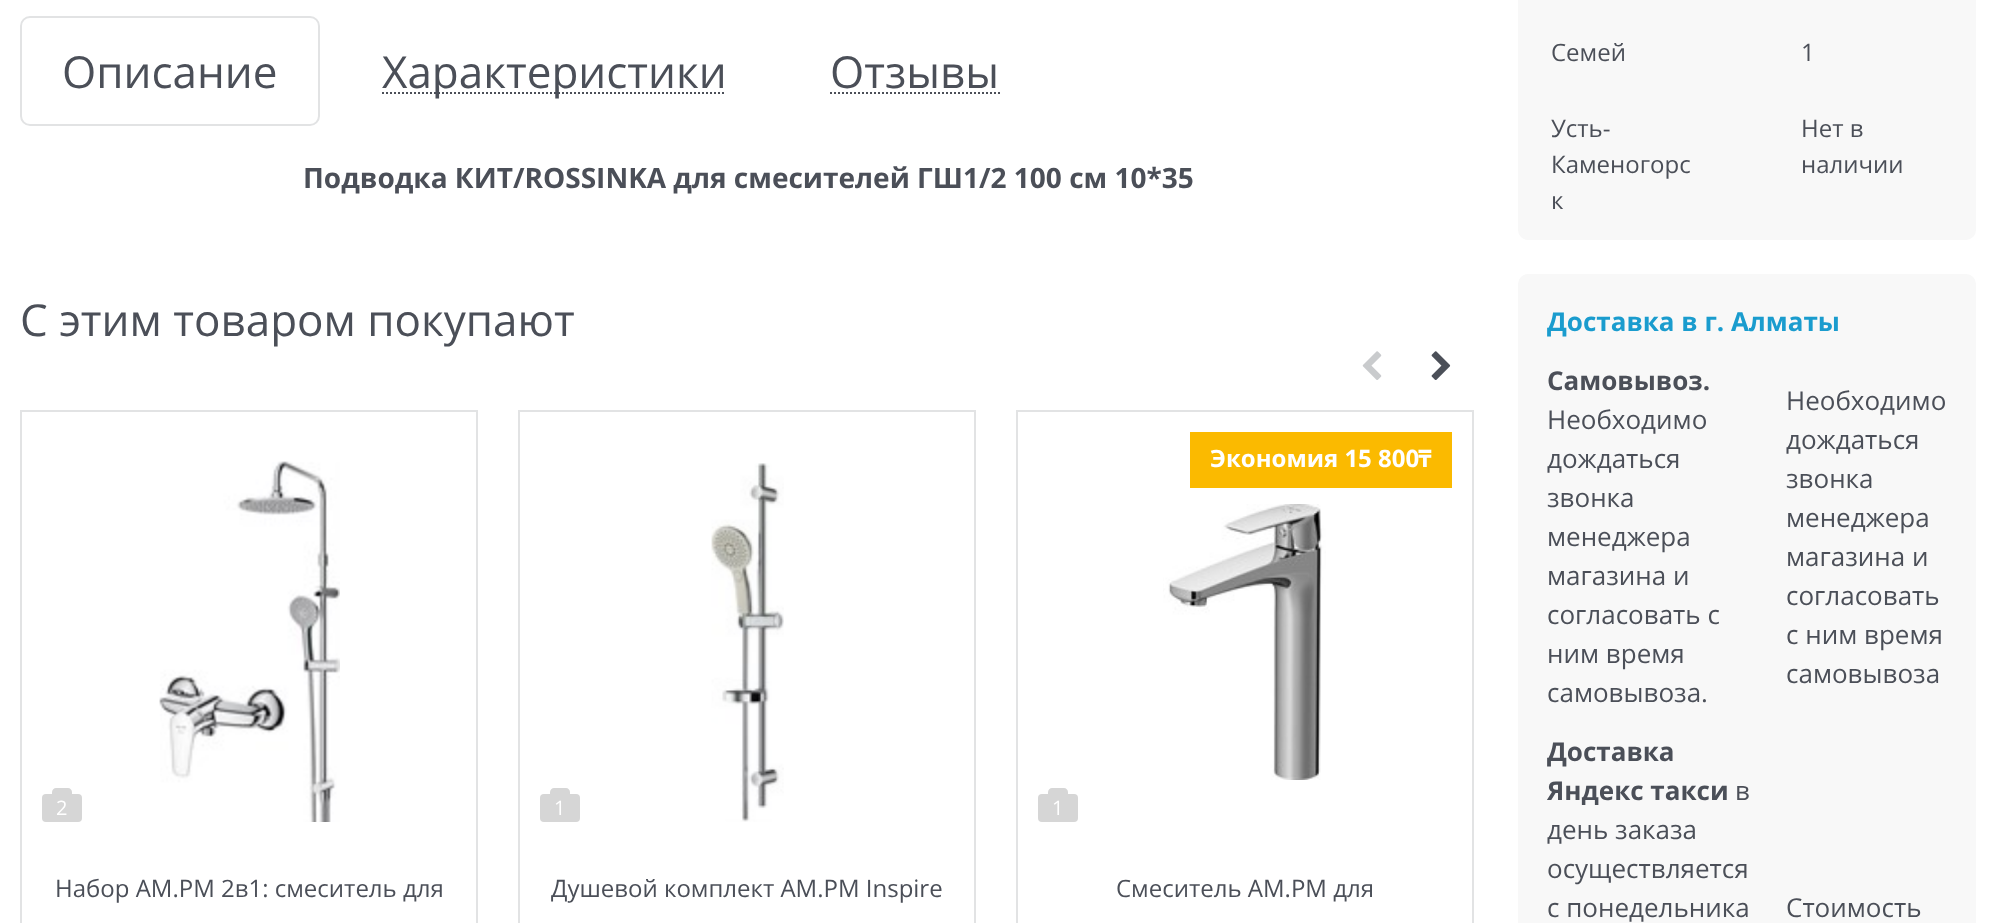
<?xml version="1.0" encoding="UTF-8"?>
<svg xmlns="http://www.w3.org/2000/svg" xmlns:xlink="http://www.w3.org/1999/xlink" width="1995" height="923">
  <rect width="100%" height="100%" fill="#ffffff" />
  <rect x="21" y="17" width="298" height="108" rx="9" fill="none" stroke="#e2e3e4" stroke-width="2" />
  <path d="M 382 93 h 344" fill="none" stroke="#4b4f58" stroke-width="2" stroke-dasharray="2 2" />
  <path d="M 830 93 h 170" fill="none" stroke="#4b4f58" stroke-width="2" stroke-dasharray="2 2" />
  <image x="1362" y="351" width="20" height="29" xlink:href="image1.png" />
  <image x="1431" y="351" width="20" height="29" xlink:href="image2.png" />
  <rect x="21" y="411" width="456" height="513" fill="none" stroke="#e2e3e4" stroke-width="2" />
  <rect x="42" y="794" width="40" height="28" rx="4" fill="#d6d6d6" />
  <path d="M 56 788 h 12 c 2 0 4 2 4 4 v 2 h -20 v -2 c 0 -2 2 -4 4 -4 z" fill="#d6d6d6" />
  <image x="159" y="461" width="181" height="361" xlink:href="image3.png" />
  <rect x="519" y="411" width="456" height="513" fill="none" stroke="#e2e3e4" stroke-width="2" />
  <rect x="540" y="794" width="40" height="28" rx="4" fill="#d6d6d6" />
  <path d="M 554 788 h 12 c 2 0 4 2 4 4 v 2 h -20 v -2 c 0 -2 2 -4 4 -4 z" fill="#d6d6d6" />
  <image x="711" y="463" width="73" height="359" xlink:href="image4.png" />
  <rect x="1017" y="411" width="456" height="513" fill="none" stroke="#e2e3e4" stroke-width="2" />
  <rect x="1190" y="432" width="262" height="56" fill="#fbba00" />
  <image x="1163" y="504" width="163" height="276" xlink:href="image5.png" />
  <rect x="1038" y="794" width="40" height="28" rx="4" fill="#d6d6d6" />
  <path d="M 1052 788 h 12 c 2 0 4 2 4 4 v 2 h -20 v -2 c 0 -2 2 -4 4 -4 z" fill="#d6d6d6" />
  <rect x="1518" y="-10" width="458" height="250" rx="10" fill="#f8f8f8" />
  <rect x="1518" y="274" width="458" height="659" rx="10" fill="#f8f8f8" />
  <text x="62" y="88" style="font-family: Open Sans; font-size: 44px; fill: #4b4f58">Описание</text>
  <text x="382" y="88" style="font-family: Open Sans; font-size: 44px; fill: #4b4f58">Характеристики</text>
  <text x="830" y="88" style="font-family: Open Sans; font-size: 44px; fill: #4b4f58">Отзывы</text>
  <text x="303" y="188" style="font-family: Open Sans; font-size: 28px; font-weight: bold; fill: #4b4f58">Подводка КИТ/ROSSINKA для смесителей ГШ1/2 100 см 10*35</text>
  <text x="20" y="336" style="font-family: Open Sans; font-size: 44px; fill: #4b4f58">С этим товаром покупают</text>
  <text x="56" y="815" style="font-family: Open Sans; font-size: 20px; fill: #ffffff">2</text>
  <text x="55" y="897" style="font-family: Open Sans; font-size: 24px; fill: #4b4f58">Набор AM.PM 2в1: смеситель для</text>
  <text x="554" y="815" style="font-family: Open Sans; font-size: 20px; fill: #ffffff">1</text>
  <text x="551" y="897" style="font-family: Open Sans; font-size: 24px; fill: #4b4f58">Душевой комплект AM.PM Inspire</text>
  <text x="1210" y="467" style="font-family: Open Sans; font-size: 24px; font-weight: bold; fill: #ffffff">Экономия 15 800</text>
  <text x="1418" y="467" style="font-family: Noto Sans; font-size: 24px; font-weight: bold; fill: #ffffff">₸</text>
  <text x="1052" y="815" style="font-family: Open Sans; font-size: 20px; fill: #ffffff">1</text>
  <text x="1116" y="897" style="font-family: Open Sans; font-size: 24px; fill: #4b4f58">Смеситель AM.PM для</text>
  <text x="1551" y="61" style="font-family: Open Sans; font-size: 24px; fill: #4b4f58">Семей</text>
  <text x="1801" y="61" style="font-family: Open Sans; font-size: 24px; fill: #4b4f58">1</text>
  <text x="1551" y="137" style="font-family: Open Sans; font-size: 24px; fill: #4b4f58">Усть-</text>
  <text x="1551" y="173" style="font-family: Open Sans; font-size: 24px; fill: #4b4f58">Каменогорс</text>
  <text x="1551" y="209" style="font-family: Open Sans; font-size: 24px; fill: #4b4f58">к</text>
  <text x="1801" y="137" style="font-family: Open Sans; font-size: 24px; fill: #4b4f58">Нет в</text>
  <text x="1801" y="173" style="font-family: Open Sans; font-size: 24px; fill: #4b4f58">наличии</text>
  <text x="1547" y="331" style="font-family: Open Sans; font-size: 26px; font-weight: bold; fill: #1a9cce">Доставка в г. Алматы</text>
  <text x="1547" y="390" style="font-family: Open Sans; font-size: 26px; font-weight: bold; fill: #4b4f58">Самовывоз.</text>
  <text x="1547" y="429" style="font-family: Open Sans; font-size: 26px; fill: #4b4f58">Необходимо</text>
  <text x="1547" y="468" style="font-family: Open Sans; font-size: 26px; fill: #4b4f58">дождаться</text>
  <text x="1547" y="507" style="font-family: Open Sans; font-size: 26px; fill: #4b4f58">звонка</text>
  <text x="1547" y="546" style="font-family: Open Sans; font-size: 26px; fill: #4b4f58">менеджера</text>
  <text x="1547" y="585" style="font-family: Open Sans; font-size: 26px; fill: #4b4f58">магазина и</text>
  <text x="1547" y="624" style="font-family: Open Sans; font-size: 26px; fill: #4b4f58">согласовать с</text>
  <text x="1547" y="663" style="font-family: Open Sans; font-size: 26px; fill: #4b4f58">ним время</text>
  <text x="1547" y="702" style="font-family: Open Sans; font-size: 26px; fill: #4b4f58">самовывоза.</text>
  <text x="1786" y="410" style="font-family: Open Sans; font-size: 26px; fill: #4b4f58">Необходимо</text>
  <text x="1786" y="449" style="font-family: Open Sans; font-size: 26px; fill: #4b4f58">дождаться</text>
  <text x="1786" y="488" style="font-family: Open Sans; font-size: 26px; fill: #4b4f58">звонка</text>
  <text x="1786" y="527" style="font-family: Open Sans; font-size: 26px; fill: #4b4f58">менеджера</text>
  <text x="1786" y="566" style="font-family: Open Sans; font-size: 26px; fill: #4b4f58">магазина и</text>
  <text x="1786" y="605" style="font-family: Open Sans; font-size: 26px; fill: #4b4f58">согласовать</text>
  <text x="1786" y="644" style="font-family: Open Sans; font-size: 26px; fill: #4b4f58">с ним время</text>
  <text x="1786" y="683" style="font-family: Open Sans; font-size: 26px; fill: #4b4f58">самовывоза</text>
  <text x="1547" y="761" style="font-family: Open Sans; font-size: 26px; font-weight: bold; fill: #4b4f58">Доставка</text>
  <text x="1547" y="800" style="font-family: Open Sans; font-size: 26px; font-weight: bold; fill: #4b4f58">Яндекс такси</text>
  <text x="1735" y="800" style="font-family: Open Sans; font-size: 26px; fill: #4b4f58">в</text>
  <text x="1547" y="839" style="font-family: Open Sans; font-size: 26px; fill: #4b4f58">день заказа</text>
  <text x="1547" y="878" style="font-family: Open Sans; font-size: 26px; fill: #4b4f58">осуществляется</text>
  <text x="1547" y="917" style="font-family: Open Sans; font-size: 26px; fill: #4b4f58">с понедельника</text>
  <text x="1786" y="917" style="font-family: Open Sans; font-size: 26px; fill: #4b4f58">Стоимость</text>
</svg>
